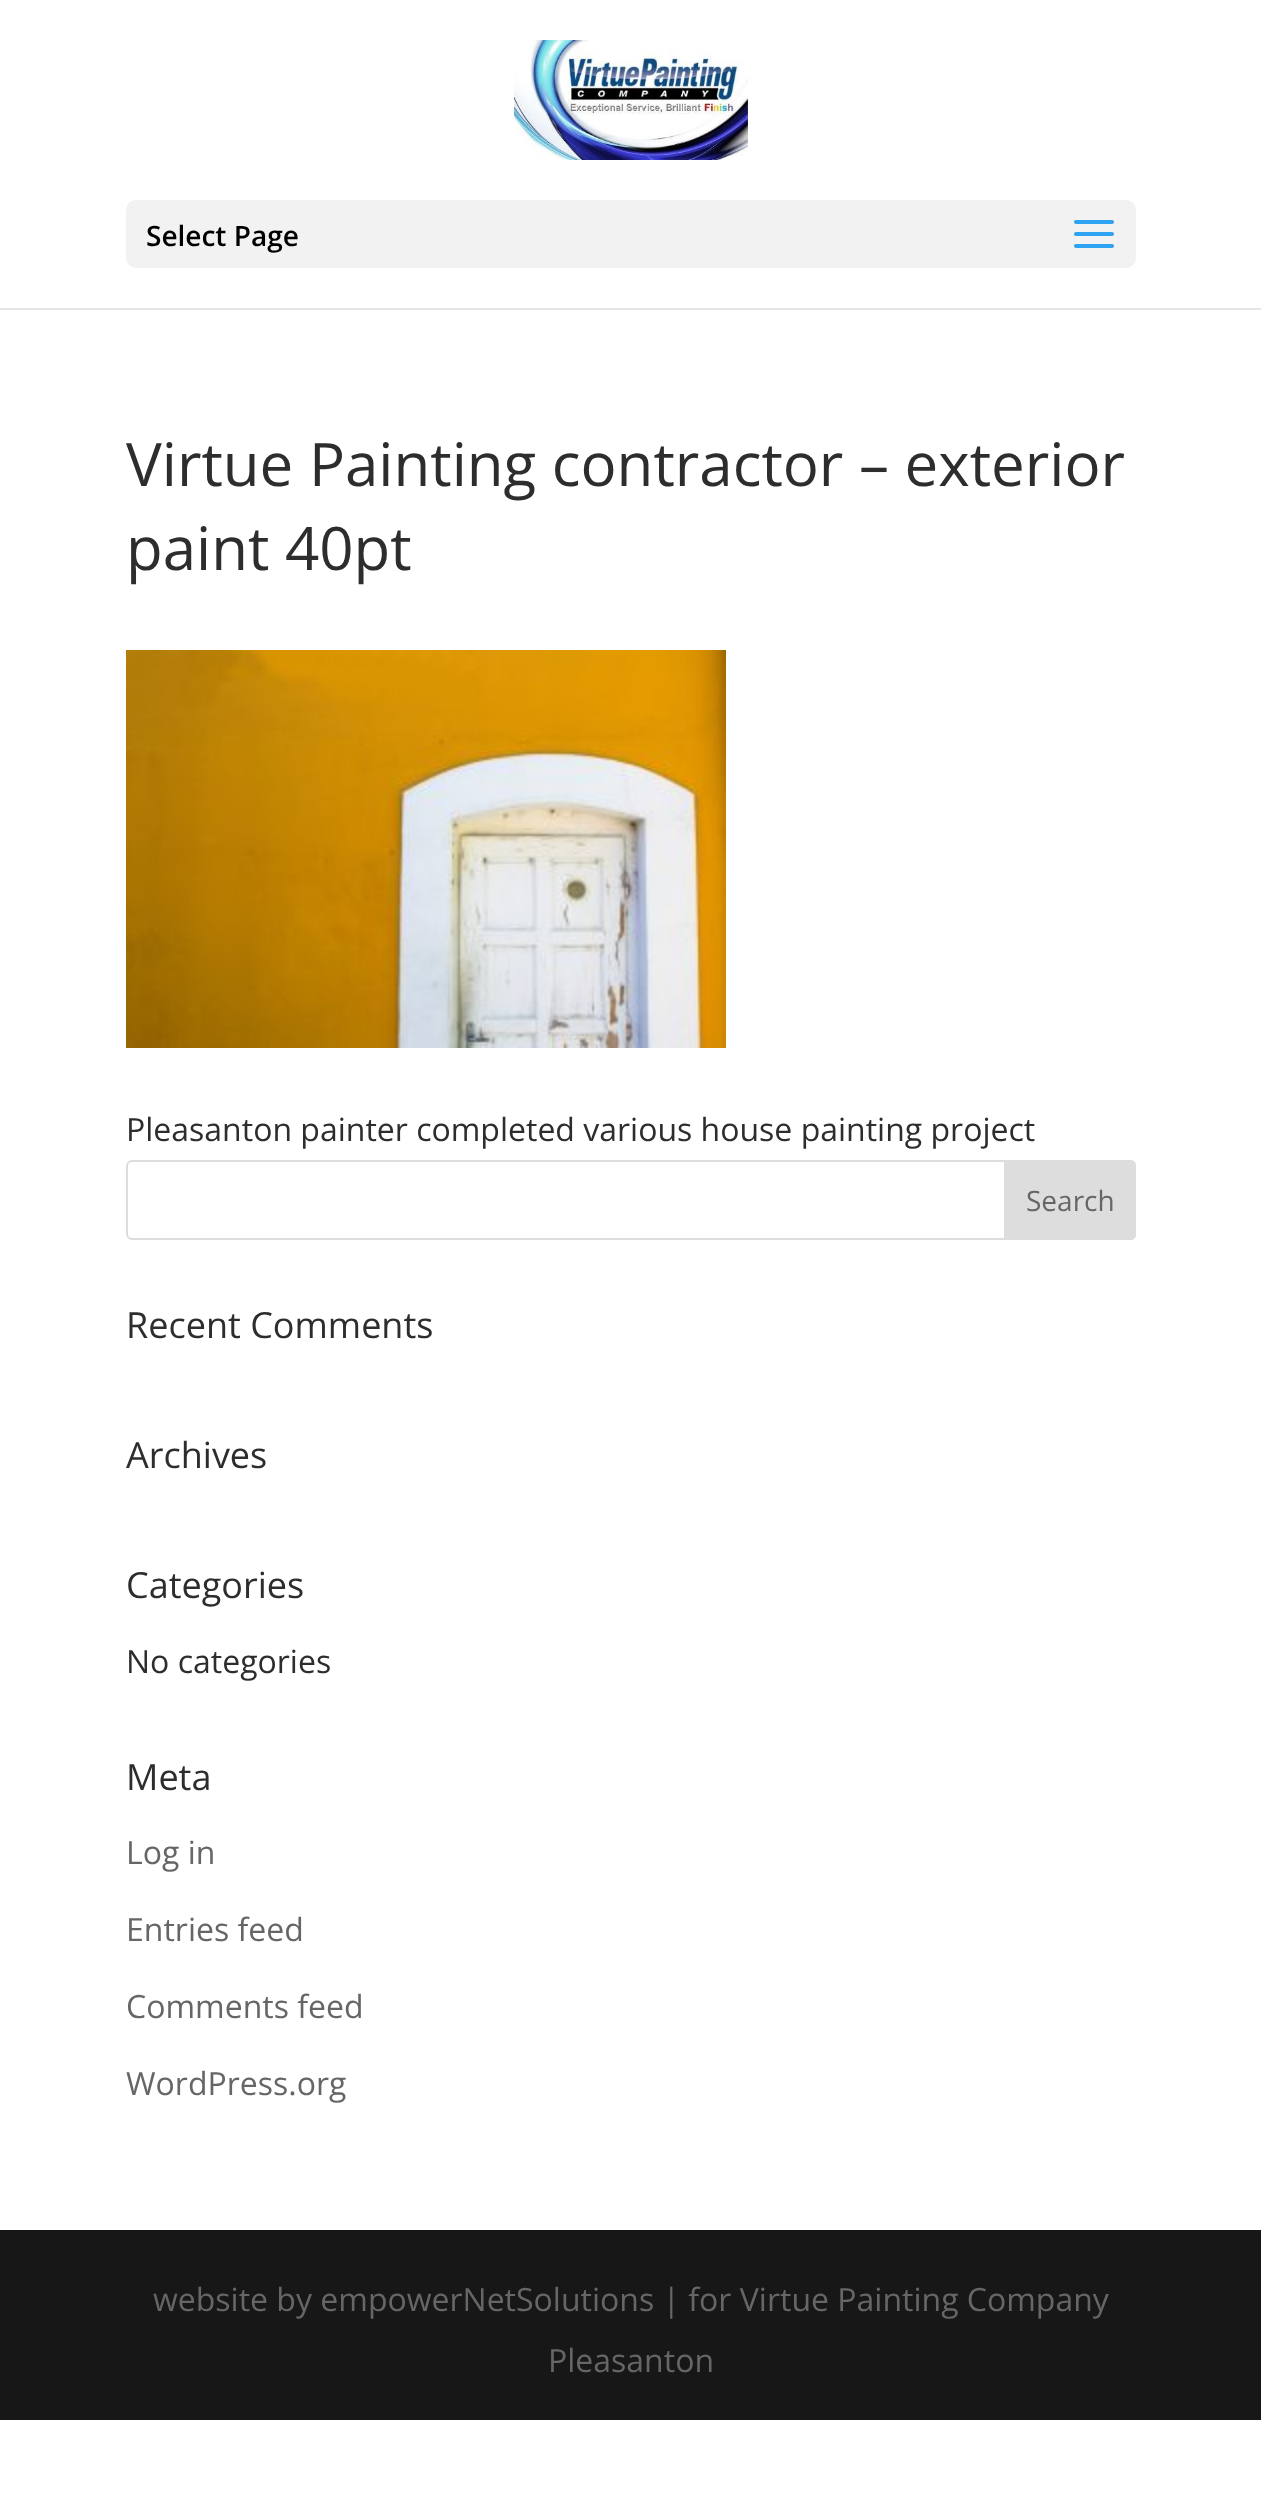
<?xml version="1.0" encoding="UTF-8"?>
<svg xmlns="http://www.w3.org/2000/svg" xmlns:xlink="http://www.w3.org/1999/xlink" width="1261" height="2517">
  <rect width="100%" height="100%" fill="#ffffff" />
  <rect y="308" width="1261" height="2" fill="#e6e6e6" />
  <image x="514" y="40" width="234" height="120" xlink:href="image1.png" />
  <rect x="126" y="200" width="1010" height="68" rx="10" fill="#f2f2f2" />
  <image x="1074" y="220" width="40" height="28" xlink:href="image2.png" />
  <image x="126" y="650" width="600" height="398" xlink:href="image3.png" />
  <rect x="127" y="1161" width="1008" height="78" rx="5" fill="none" stroke="#dddddd" stroke-width="2" />
  <path d="M 1005 1161 h 125 c 3 0 5 2 5 5 v 68 c 0 3 -2 5 -5 5 h -125 z" fill="#dddddd" stroke="#dddddd" stroke-width="2" />
  <rect y="2230" width="1261" height="190" fill="#171717" />
  <text x="146" y="246" style="font-family: Open Sans; font-size: 28px; font-weight: 600; fill: #000000">Select Page</text>
  <text x="126" y="486" style="font-family: Open Sans; font-size: 60px; fill: #2d2d2d">Virtue Painting contractor – exterior</text>
  <text x="126" y="570" style="font-family: Open Sans; font-size: 60px; fill: #2d2d2d">paint 40pt</text>
  <text x="126" y="1141" style="font-family: Open Sans; font-size: 32px; fill: #2d2d2d">Pleasanton painter completed various house painting project</text>
  <text x="1026" y="1211" style="font-family: Open Sans; font-size: 28px; fill: #666666">Search</text>
  <text x="126" y="1338" style="font-family: Open Sans; font-size: 36px; fill: #2d2d2d">Recent Comments</text>
  <text x="126" y="1468" style="font-family: Open Sans; font-size: 36px; fill: #2d2d2d">Archives</text>
  <text x="126" y="1598" style="font-family: Open Sans; font-size: 36px; fill: #2d2d2d">Categories</text>
  <text x="126" y="1673" style="font-family: Open Sans; font-size: 32px; fill: #2d2d2d">No categories</text>
  <text x="126" y="1790" style="font-family: Open Sans; font-size: 36px; fill: #2d2d2d">Meta</text>
  <text x="126" y="1864" style="font-family: Open Sans; font-size: 32px; fill: #666666">Log in</text>
  <text x="126" y="1941" style="font-family: Open Sans; font-size: 32px; fill: #666666">Entries feed</text>
  <text x="126" y="2018" style="font-family: Open Sans; font-size: 32px; fill: #666666">Comments feed</text>
  <text x="126" y="2095" style="font-family: Open Sans; font-size: 32px; fill: #666666">WordPress.org</text>
  <text x="153" y="2311" style="font-family: Open Sans; font-size: 32px; fill: #666666">website by empowerNetSolutions | for Virtue Painting Company</text>
  <text x="548" y="2372" style="font-family: Open Sans; font-size: 32px; fill: #666666">Pleasanton</text>
</svg>
